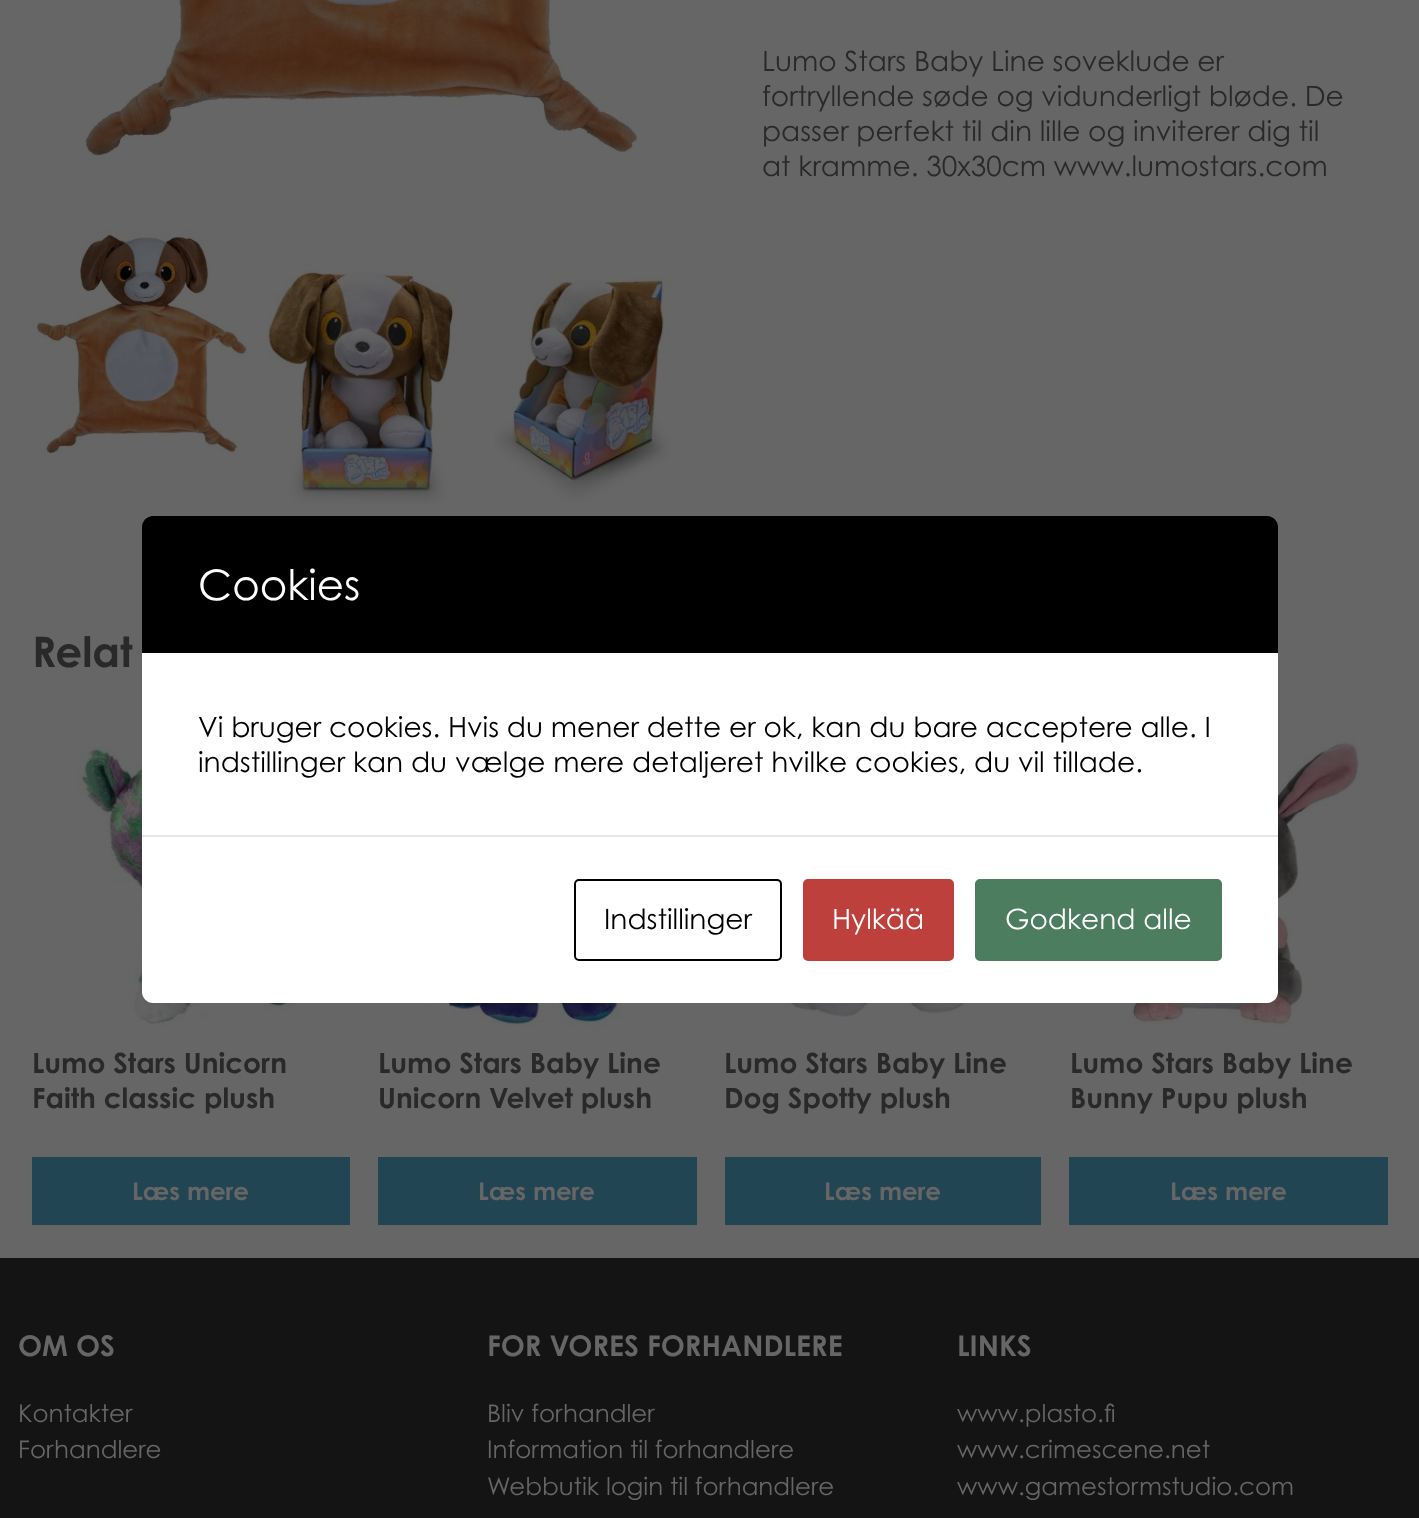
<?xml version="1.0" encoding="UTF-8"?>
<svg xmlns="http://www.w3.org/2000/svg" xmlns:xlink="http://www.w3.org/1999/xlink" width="1419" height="1518">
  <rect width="100%" height="100%" fill="#666666" />
  <image x="85" y="0" width="552" height="156" xlink:href="image1.png" />
  <image x="31" y="229" width="220" height="225" xlink:href="image2.png" />
  <image x="267" y="263" width="188" height="241" xlink:href="image3.png" />
  <image x="494" y="275" width="179" height="227" xlink:href="image4.png" />
  <image x="77" y="712" width="222" height="314" xlink:href="image5.png" />
  <rect x="32" y="1157" width="318" height="68" fill="#224554" />
  <image x="423" y="1003" width="218" height="28" xlink:href="image6.png" />
  <rect x="378" y="1157" width="319" height="68" fill="#224554" />
  <image x="726" y="1003" width="311" height="14" xlink:href="image7.png" />
  <rect x="725" y="1157" width="316" height="68" fill="#224554" />
  <image x="1091" y="714" width="271" height="312" xlink:href="image8.png" />
  <rect x="1069" y="1157" width="319" height="68" fill="#224554" />
  <path d="M 153 516 h 1114 c 6 0 11 5 11 11 v 126 h -1136 v -126 c 0 -6 5 -11 11 -11 z" fill="#000000" />
  <rect x="142" y="653" width="1136" height="182" fill="#ffffff" />
  <path d="M 142 835 h 1136 v 157 c 0 6 -5 11 -11 11 h -1114 c -6 0 -11 -5 -11 -11 z" fill="#ffffff" />
  <rect x="142" y="835" width="1136" height="2" fill="#e6e6e6" />
  <rect x="575" y="880" width="206" height="80" rx="4" fill="none" stroke="#000000" stroke-width="2" />
  <rect x="804" y="880" width="149" height="80" rx="4" fill="#bd403c" stroke="#bd403c" stroke-width="2" />
  <rect x="976" y="880" width="245" height="80" rx="4" fill="#4b7d5e" stroke="#4b7d5e" stroke-width="2" />
  <rect y="1258" width="1419" height="260" fill="#141414" />
  <text x="762" y="71" style="font-family: Century Gothic; font-size: 28px; fill: #292929">Lumo Stars Baby Line soveklude er</text>
  <text x="762" y="106" style="font-family: Century Gothic; font-size: 28px; fill: #292929">fortryllende søde og vidunderligt bløde. De</text>
  <text x="762" y="141" style="font-family: Century Gothic; font-size: 28px; fill: #292929">passer perfekt til din lille og inviterer dig til</text>
  <text x="762" y="176" style="font-family: Century Gothic; font-size: 28px; fill: #292929">at kramme. 30x30cm www.lumostars.com</text>
  <text x="32" y="667" style="font-family: Century Gothic; font-size: 42px; font-weight: bold; fill: #292929">Relat</text>
  <text x="32" y="1073" style="font-family: Century Gothic; font-size: 28px; font-weight: bold; fill: #292929">Lumo Stars Unicorn</text>
  <text x="32" y="1108" style="font-family: Century Gothic; font-size: 28px; font-weight: bold; fill: #292929">Faith classic plush</text>
  <text x="132" y="1200" style="font-family: Century Gothic; font-size: 24.5px; font-weight: bold; fill: #666666">Læs mere</text>
  <text x="378" y="1073" style="font-family: Century Gothic; font-size: 28px; font-weight: bold; fill: #292929">Lumo Stars Baby Line</text>
  <text x="378" y="1108" style="font-family: Century Gothic; font-size: 28px; font-weight: bold; fill: #292929">Unicorn Velvet plush</text>
  <text x="478" y="1200" style="font-family: Century Gothic; font-size: 24.5px; font-weight: bold; fill: #666666">Læs mere</text>
  <text x="724" y="1073" style="font-family: Century Gothic; font-size: 28px; font-weight: bold; fill: #292929">Lumo Stars Baby Line</text>
  <text x="724" y="1108" style="font-family: Century Gothic; font-size: 28px; font-weight: bold; fill: #292929">Dog Spotty plush</text>
  <text x="824" y="1200" style="font-family: Century Gothic; font-size: 24.5px; font-weight: bold; fill: #666666">Læs mere</text>
  <text x="1070" y="1073" style="font-family: Century Gothic; font-size: 28px; font-weight: bold; fill: #292929">Lumo Stars Baby Line</text>
  <text x="1070" y="1108" style="font-family: Century Gothic; font-size: 28px; font-weight: bold; fill: #292929">Bunny Pupu plush</text>
  <text x="1170" y="1200" style="font-family: Century Gothic; font-size: 24.5px; font-weight: bold; fill: #666666">Læs mere</text>
  <text x="198" y="600" style="font-family: Century Gothic; font-size: 42px; fill: #ffffff">Cookies</text>
  <text x="198" y="737" style="font-family: Century Gothic; font-size: 28px; fill: #000000">Vi bruger cookies. Hvis du mener dette er ok, kan du bare acceptere alle. I</text>
  <text x="198" y="772" style="font-family: Century Gothic; font-size: 28px; fill: #000000">indstillinger kan du vælge mere detaljeret hvilke cookies, du vil tillade.</text>
  <text x="604" y="929" style="font-family: Century Gothic; font-size: 28px; fill: #000000">Indstillinger</text>
  <text x="832" y="929" style="font-family: Century Gothic; font-size: 28px; fill: #ffffff">Hylkää</text>
  <text x="1005" y="929" style="font-family: Century Gothic; font-size: 28px; fill: #ffffff">Godkend alle</text>
  <text x="18" y="1356" style="font-family: Century Gothic; font-size: 28.7px; font-weight: bold; fill: #666666">OM OS</text>
  <text x="18" y="1422" style="font-family: Century Gothic; font-size: 24.5px; fill: #666666">Kontakter</text>
  <text x="18" y="1458" style="font-family: Century Gothic; font-size: 24.5px; fill: #666666">Forhandlere</text>
  <text x="487" y="1356" style="font-family: Century Gothic; font-size: 28.7px; font-weight: bold; fill: #666666">FOR VORES FORHANDLERE</text>
  <text x="487" y="1422" style="font-family: Century Gothic; font-size: 24.5px; fill: #666666">Bliv forhandler</text>
  <text x="487" y="1458" style="font-family: Century Gothic; font-size: 24.5px; fill: #666666">Information til forhandlere</text>
  <text x="487" y="1495" style="font-family: Century Gothic; font-size: 24.5px; fill: #666666">Webbutik login til forhandlere</text>
  <text x="957" y="1356" style="font-family: Century Gothic; font-size: 28.7px; font-weight: bold; fill: #666666">LINKS</text>
  <text x="957" y="1422" style="font-family: Century Gothic; font-size: 24.5px; fill: #666666">www.plasto.fi</text>
  <text x="957" y="1458" style="font-family: Century Gothic; font-size: 24.5px; fill: #666666">www.crimescene.net</text>
  <text x="957" y="1495" style="font-family: Century Gothic; font-size: 24.5px; fill: #666666">www.gamestormstudio.com</text>
</svg>
